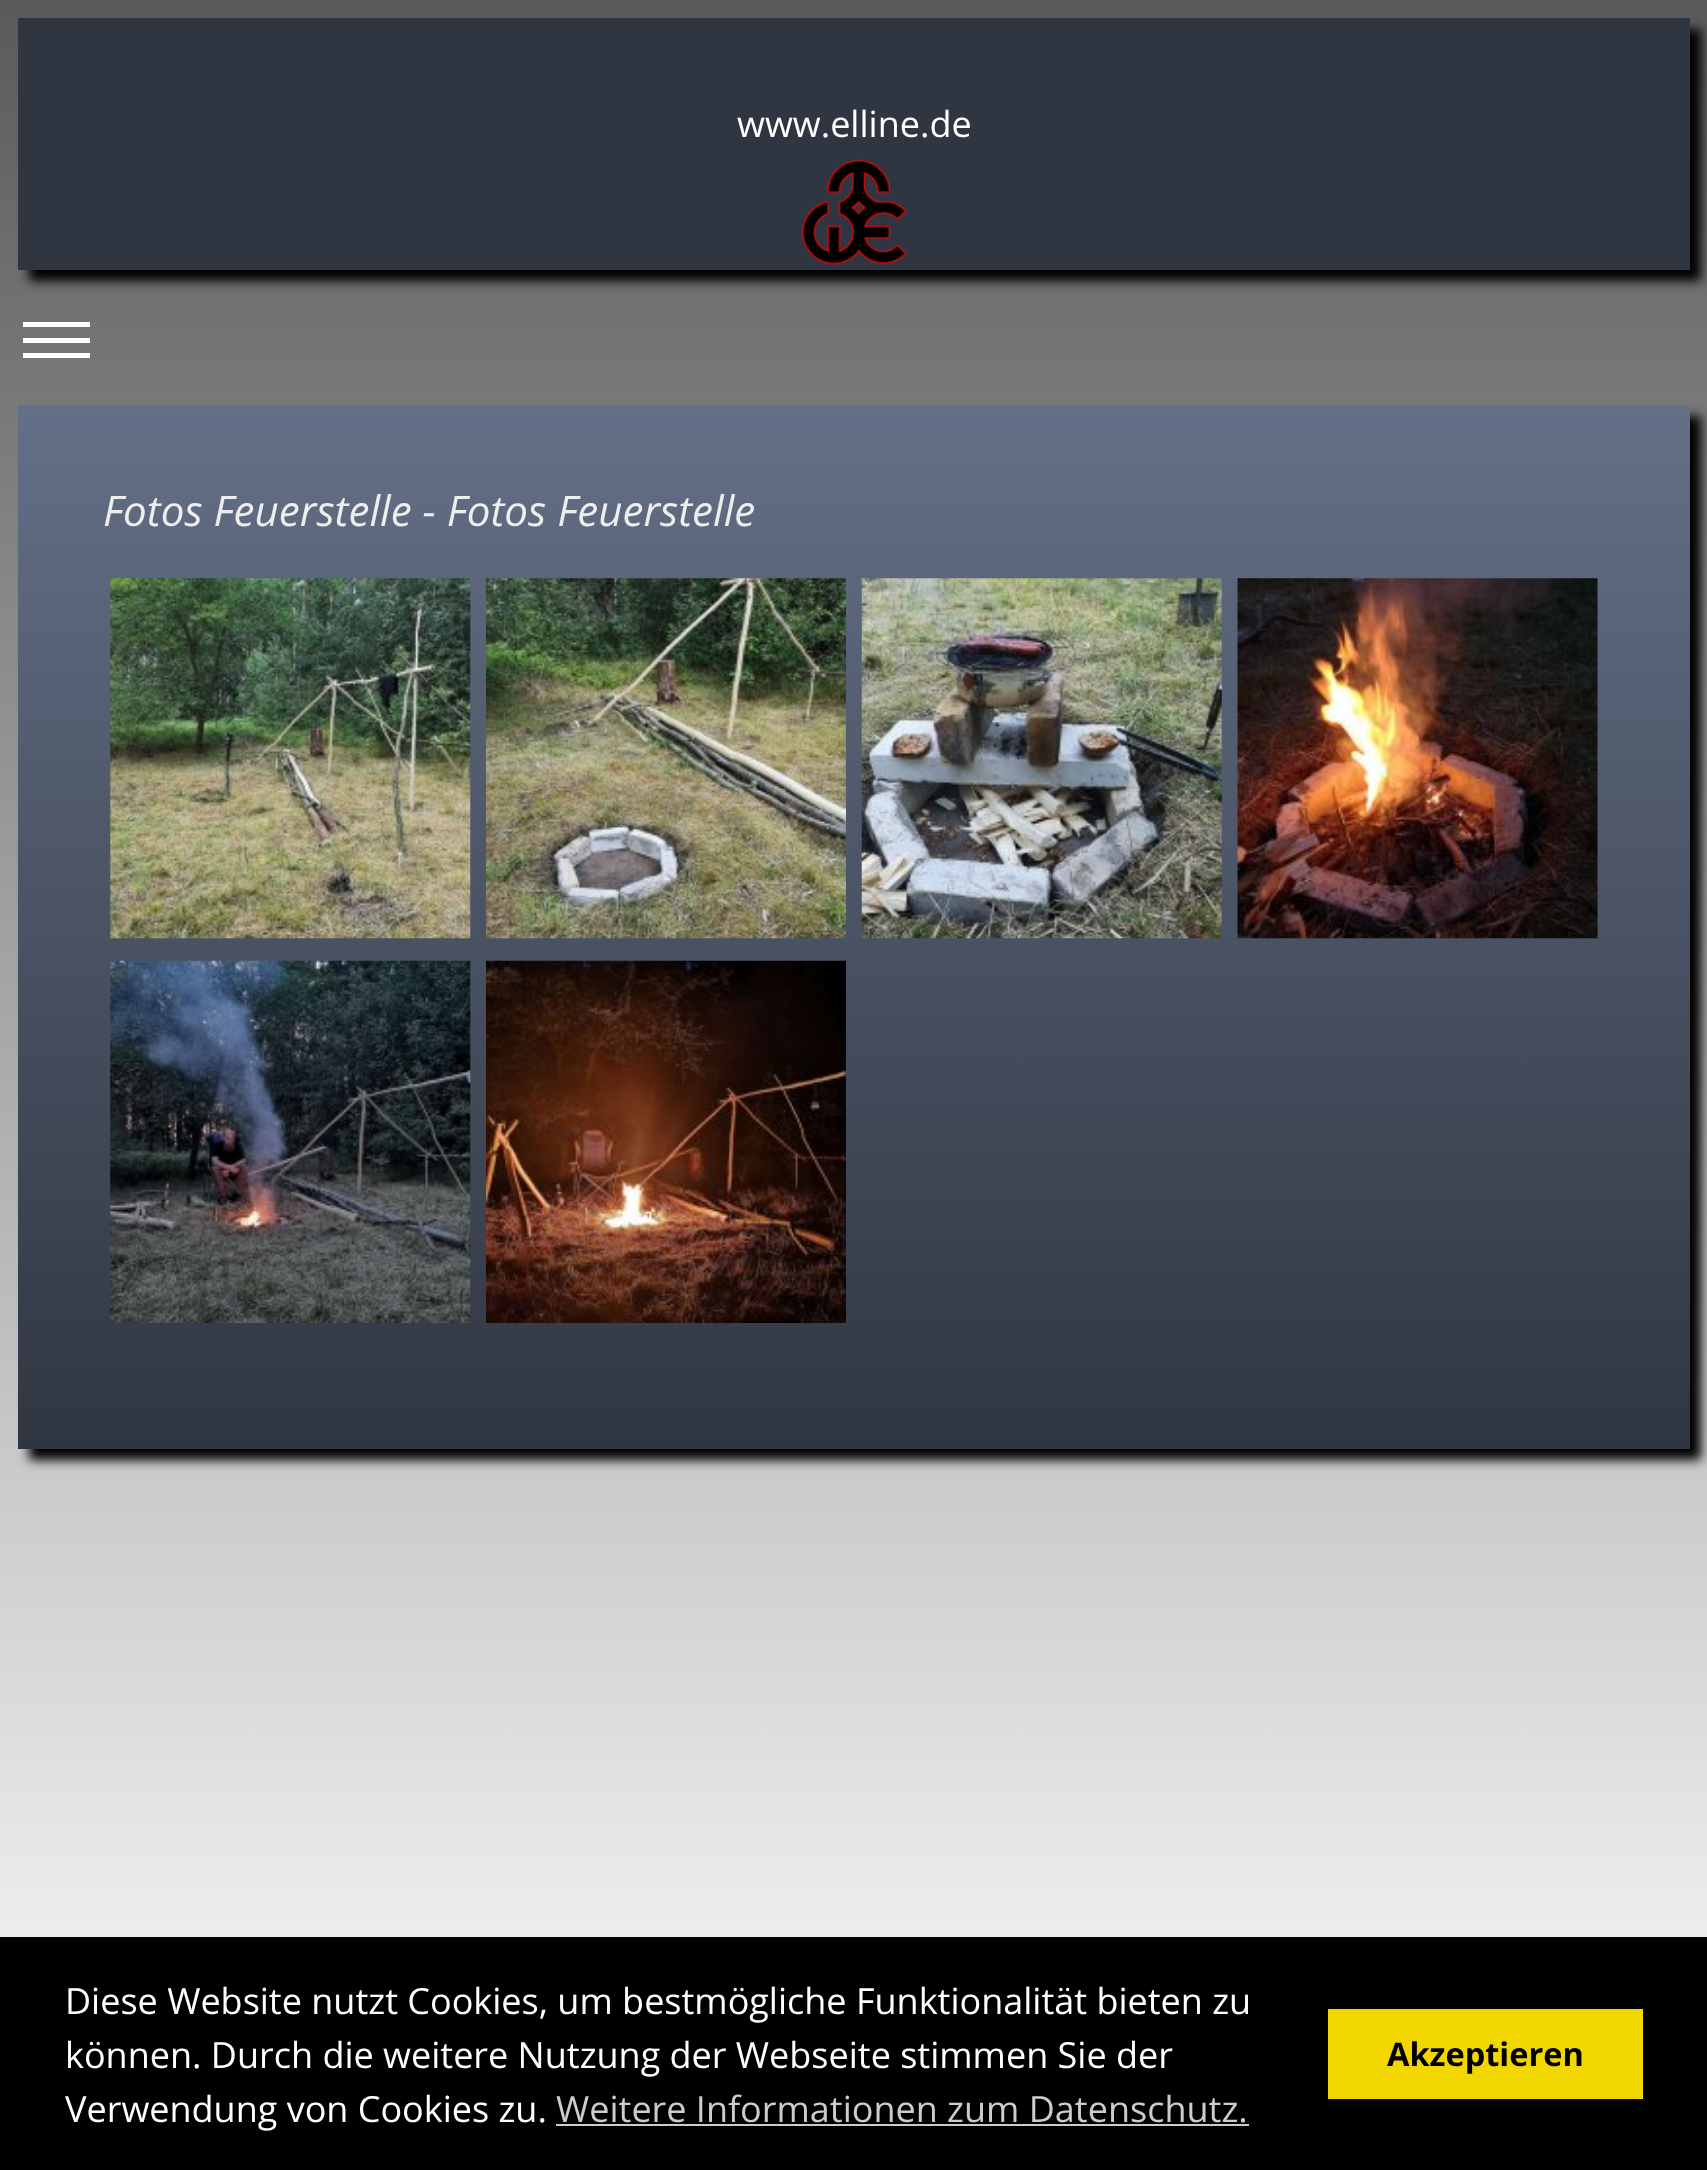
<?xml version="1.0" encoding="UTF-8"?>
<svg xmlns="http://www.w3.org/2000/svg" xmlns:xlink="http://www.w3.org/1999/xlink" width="1707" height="2170">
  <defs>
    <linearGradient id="g1" gradientUnits="userSpaceOnUse" x1="854" y1="0" x2="854" y2="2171"><stop offset="0" stop-color="#5a5a5a" /><stop offset="1" stop-color="#ffffff" /></linearGradient>
    <linearGradient id="g2" gradientUnits="userSpaceOnUse" x1="854" y1="405" x2="854" y2="1449"><stop offset="0" stop-color="#647087" /><stop offset="1" stop-color="#303641" /></linearGradient>
  </defs>
  <rect width="100%" height="100%" fill="#ffffff" />
  <rect width="1707" height="1937" fill="url(#g1)" />
  <rect x="29" y="29" width="1672" height="252" fill="#000000" filter="blur(5.5px)" />
  <rect x="18" y="18" width="1672" height="252" fill="#303641" />
  <image x="801" y="159" width="106" height="106" xlink:href="image1.png" />
  <rect x="23" y="338" width="67" height="5" fill="#ffffff" />
  <rect x="23" y="322" width="67" height="5" fill="#ffffff" />
  <rect x="23" y="353" width="67" height="5" fill="#ffffff" />
  <rect x="29" y="416" width="1672" height="1044" fill="#000000" filter="blur(5.5px)" />
  <rect x="18" y="405" width="1672" height="1044" fill="url(#g2)" />
  <image x="110" y="578" width="361" height="361" xlink:href="image2.png" />
  <image x="486" y="578" width="360" height="361" xlink:href="image3.png" />
  <image x="861" y="578" width="361" height="361" xlink:href="image4.png" />
  <image x="1237" y="578" width="361" height="361" xlink:href="image5.png" />
  <image x="110" y="960" width="361" height="363" xlink:href="image6.png" />
  <image x="486" y="960" width="360" height="363" xlink:href="image7.png" />
  <rect y="1937" width="1707" height="233" fill="#000000" />
  <rect x="556" y="2124" width="693" height="2" fill="#cccccc" />
  <rect x="1328" y="2009" width="315" height="90" fill="#f1d600" />
  <text x="737" y="137" style="font-family: Open Sans; font-size: 36px; fill: #ffffff">www.elline.de</text>
  <text x="103" y="526" style="font-family: Open Sans; font-size: 42.1px; font-style: italic; fill: #eeeeee">Fotos Feuerstelle - Fotos Feuerstelle</text>
  <text x="65" y="2014" style="font-family: Open Sans; font-size: 36px; fill: #ffffff">Diese Website nutzt Cookies, um bestmögliche Funktionalität bieten zu</text>
  <text x="65" y="2068" style="font-family: Open Sans; font-size: 36px; fill: #ffffff">können. Durch die weitere Nutzung der Webseite stimmen Sie der</text>
  <text x="65" y="2122" style="font-family: Open Sans; font-size: 36px; fill: #ffffff">Verwendung von Cookies zu.</text>
  <text x="556" y="2122" style="font-family: Open Sans; font-size: 36px; fill: #cccccc">Weitere Informationen zum Datenschutz.</text>
  <text x="1387" y="2066" style="font-family: Open Sans; font-size: 32.5px; font-weight: bold; fill: #000000">Akzeptieren</text>
</svg>
